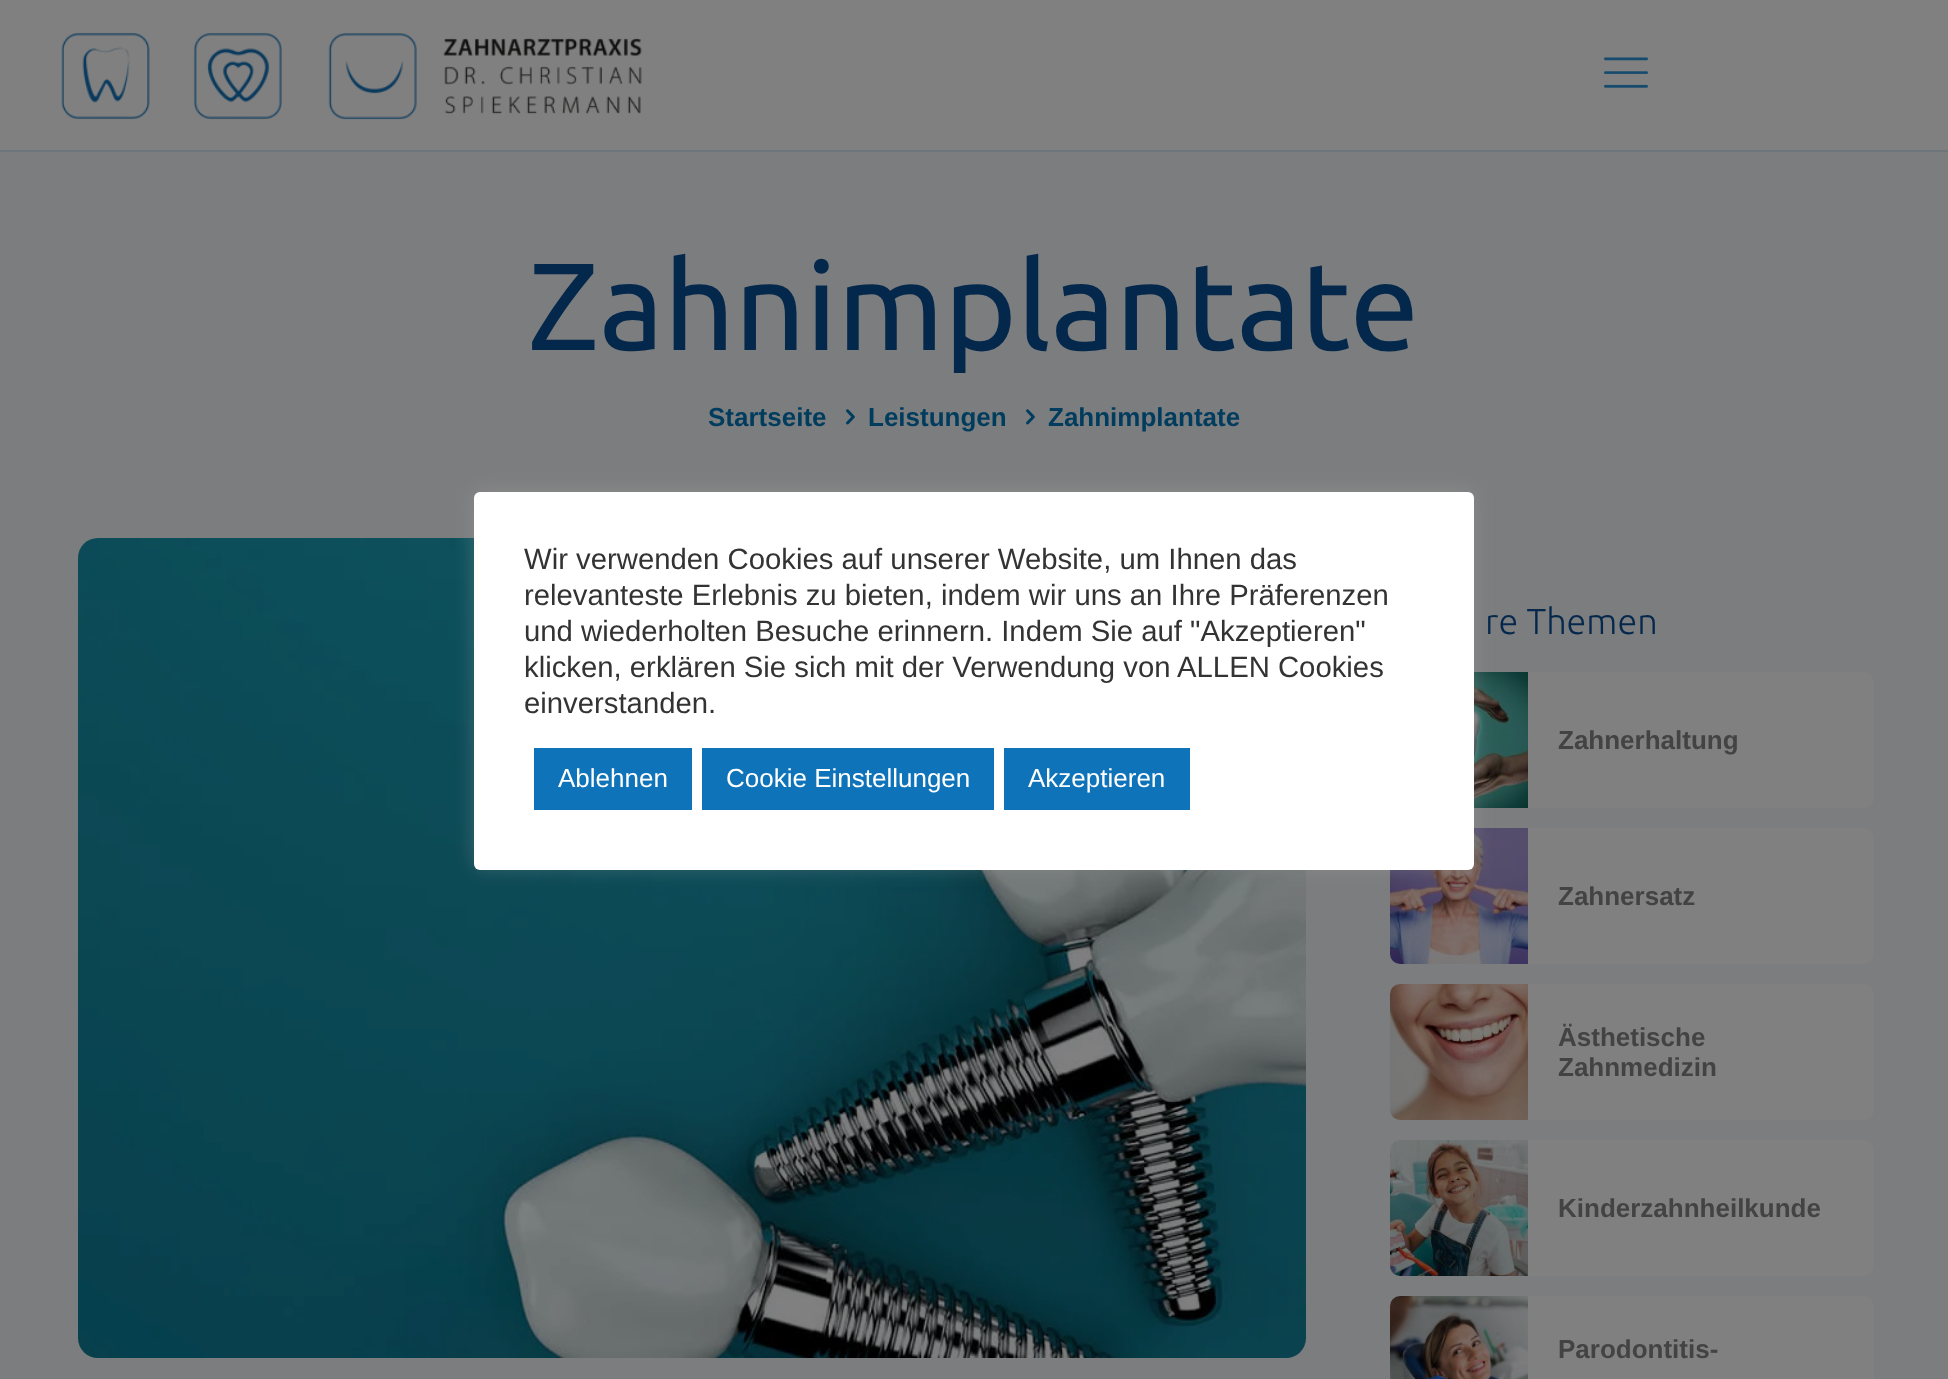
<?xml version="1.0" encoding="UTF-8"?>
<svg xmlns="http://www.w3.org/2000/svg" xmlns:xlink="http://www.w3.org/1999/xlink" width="1948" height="1379">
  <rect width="100%" height="100%" fill="#808080" />
  <image x="61" y="32" width="581" height="88" xlink:href="image1.png" />
  <image x="1604" y="57" width="44" height="31" xlink:href="image2.png" />
  <rect y="152" width="1948" height="1227" fill="#7c7d7e" />
  <rect y="150" width="1948" height="2" fill="#6d757a" />
  <image x="846" y="409" width="9" height="16" xlink:href="image3.png" />
  <image x="1026" y="409" width="9" height="16" xlink:href="image3.png" />
  <image x="78" y="538" width="1228" height="820" xlink:href="image4.png" />
  <rect x="1390" y="672" width="484" height="136" rx="10" fill="#808080" />
  <image x="1474" y="672" width="54" height="136" xlink:href="image5.png" />
  <rect x="1390" y="828" width="484" height="136" rx="10" fill="#808080" />
  <image x="1390" y="828" width="138" height="136" xlink:href="image6.png" />
  <rect x="1390" y="984" width="484" height="136" rx="10" fill="#808080" />
  <image x="1390" y="984" width="138" height="136" xlink:href="image7.png" />
  <rect x="1390" y="1140" width="484" height="136" rx="10" fill="#808080" />
  <image x="1390" y="1140" width="138" height="136" xlink:href="image8.png" />
  <rect x="1390" y="1296" width="484" height="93" rx="10" fill="#808080" />
  <image x="1390" y="1296" width="138" height="83" xlink:href="image9.png" />
  <rect x="474" y="490" width="1000" height="378" rx="6" fill="#acabab" fill-opacity="0.3" filter="blur(10px)" />
  <rect x="474" y="492" width="1000" height="378" rx="6" fill="#ffffff" />
  <rect x="534" y="748" width="158" height="62" fill="#0f73b9" />
  <rect x="702" y="748" width="292" height="62" fill="#0f73b9" />
  <rect x="1004" y="748" width="186" height="62" fill="#0f73b9" />
  <text x="528" y="350" style="font-family: Ubuntu; font-size: 124px; fill: #04274c">Zahnimplantate</text>
  <text x="708" y="426" style="font-family: Liberation Sans; font-size: 26px; font-weight: bold; fill: #003c5e">Startseite</text>
  <text x="868" y="426" style="font-family: Liberation Sans; font-size: 26px; font-weight: bold; fill: #003c5e">Leistungen</text>
  <text x="1048" y="426" style="font-family: Liberation Sans; font-size: 26px; font-weight: bold; fill: #003c5e">Zahnimplantate</text>
  <text x="1485" y="634" style="font-family: Ubuntu; font-size: 36px; font-weight: 300; fill: #04274c">re Themen</text>
  <text x="1558" y="749" style="font-family: Liberation Sans; font-size: 26px; font-weight: bold; fill: #434343">Zahnerhaltung</text>
  <text x="1558" y="905" style="font-family: Liberation Sans; font-size: 26px; font-weight: bold; fill: #434343">Zahnersatz</text>
  <text x="1558" y="1046" style="font-family: Liberation Sans; font-size: 26px; font-weight: bold; fill: #434343">Ästhetische</text>
  <text x="1558" y="1076" style="font-family: Liberation Sans; font-size: 26px; font-weight: bold; fill: #434343">Zahnmedizin</text>
  <text x="1558" y="1217" style="font-family: Liberation Sans; font-size: 26px; font-weight: bold; fill: #434343">Kinderzahnheilkunde</text>
  <text x="1558" y="1358" style="font-family: Liberation Sans; font-size: 26px; font-weight: bold; fill: #434343">Parodontitis-</text>
  <text x="524" y="569" style="font-family: Liberation Sans; font-size: 29.3px; fill: #333333">Wir verwenden Cookies auf unserer Website, um Ihnen das</text>
  <text x="524" y="605" style="font-family: Liberation Sans; font-size: 29.3px; fill: #333333">relevanteste Erlebnis zu bieten, indem wir uns an Ihre Präferenzen</text>
  <text x="524" y="641" style="font-family: Liberation Sans; font-size: 29.3px; fill: #333333">und wiederholten Besuche erinnern. Indem Sie auf "Akzeptieren"</text>
  <text x="524" y="677" style="font-family: Liberation Sans; font-size: 29.3px; fill: #333333">klicken, erklären Sie sich mit der Verwendung von ALLEN Cookies</text>
  <text x="524" y="713" style="font-family: Liberation Sans; font-size: 29.3px; fill: #333333">einverstanden.</text>
  <text x="558" y="787" style="font-family: Liberation Sans; font-size: 26px; fill: #ffffff">Ablehnen</text>
  <text x="726" y="787" style="font-family: Liberation Sans; font-size: 26px; fill: #ffffff">Cookie Einstellungen</text>
  <text x="1028" y="787" style="font-family: Liberation Sans; font-size: 26px; fill: #ffffff">Akzeptieren</text>
</svg>
